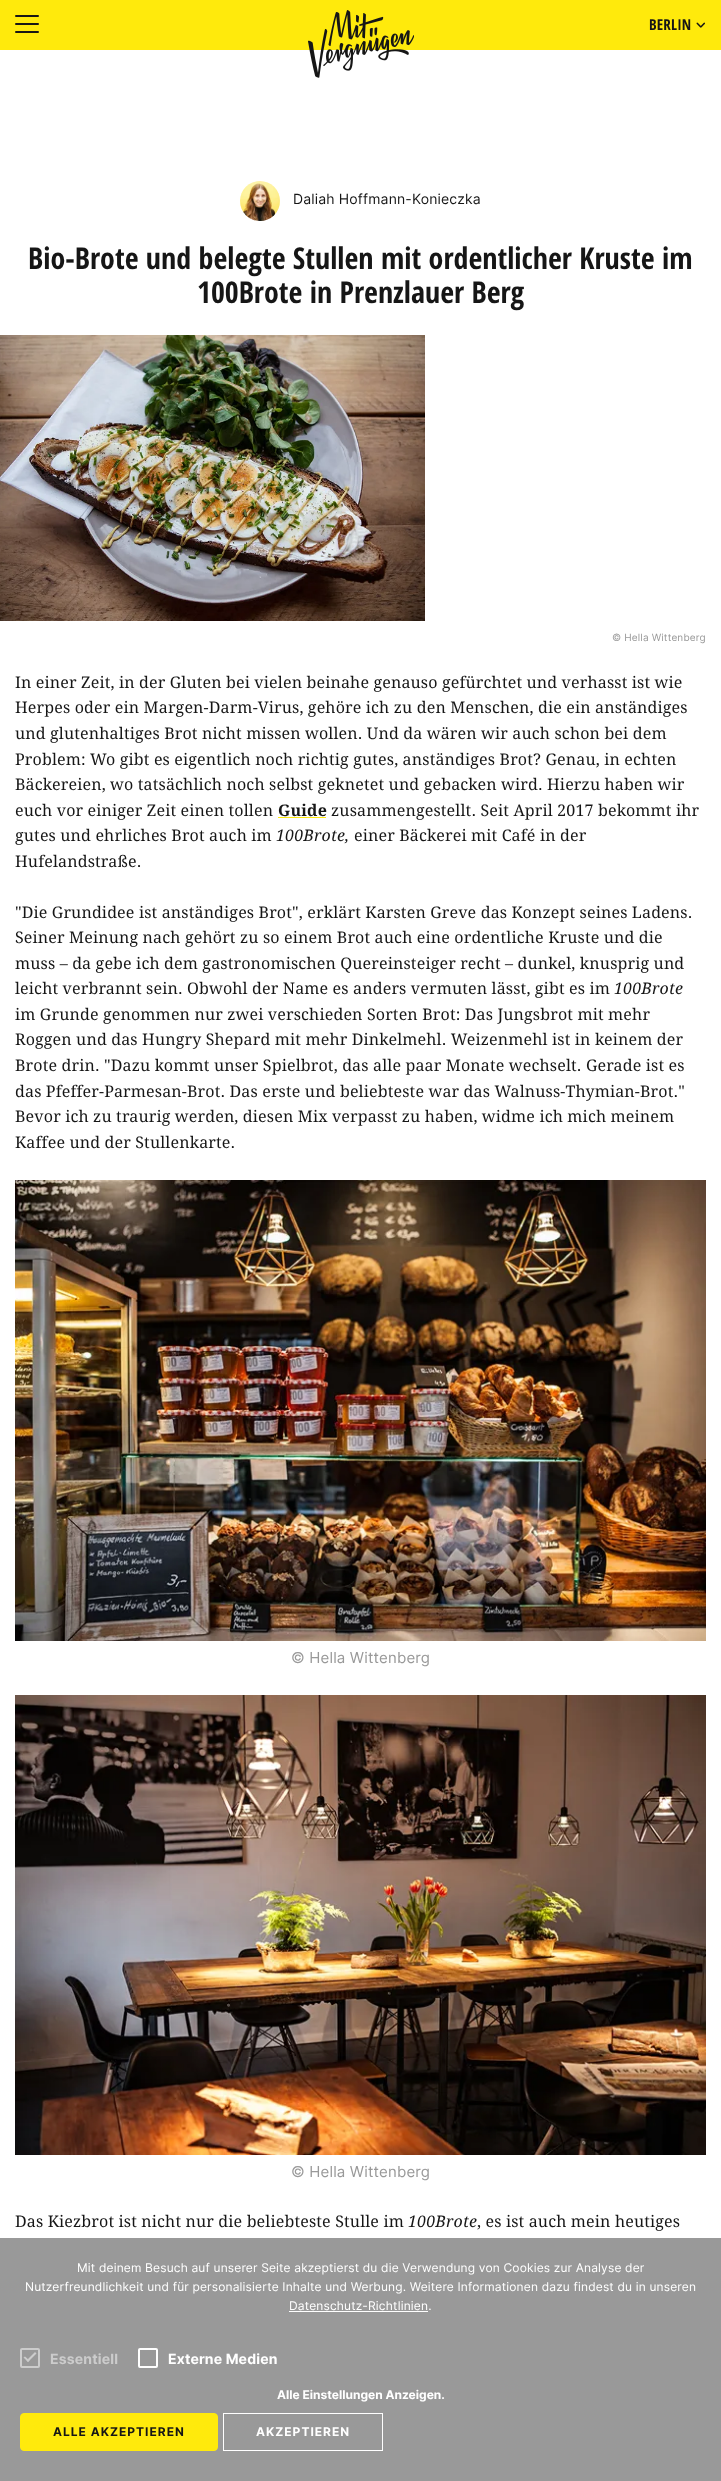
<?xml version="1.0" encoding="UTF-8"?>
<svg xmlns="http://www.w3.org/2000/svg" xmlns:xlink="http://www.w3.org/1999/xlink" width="721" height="2481">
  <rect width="100%" height="100%" fill="#ffffff" />
  <rect width="721" height="50" fill="#ffea0c" />
  <rect x="15" y="15" width="24" height="2" rx="1" fill="#181715" />
  <rect x="15" y="23" width="24" height="2" rx="1" fill="#181715" />
  <rect x="15" y="31" width="24" height="2" rx="1" fill="#181715" />
  <image x="308" y="10" width="106" height="68" xlink:href="image1.png" />
  <image x="696" y="22" width="9" height="6" xlink:href="image2.png" />
  <image x="240" y="181" width="40" height="40" xlink:href="image3.png" />
  <image x="0" y="335" width="425" height="286" xlink:href="image4.png" />
  <rect x="278" y="817" width="48" height="1" fill="#ffea0c" />
  <image x="15" y="1180" width="691" height="461" xlink:href="image5.png" />
  <image x="15" y="1695" width="691" height="460" xlink:href="image6.png" />
  <rect y="2238" width="721" height="243" fill="#999999" />
  <rect x="289" y="2311" width="139" height="1" fill="#ffffff" />
  <rect x="21" y="2349" width="18" height="18" rx="1" fill="none" stroke="#cccccc" stroke-width="2" />
  <path d="M 35 2352 l 1.5 1.5 l -8.5 8.5 l -1.5 -1.5 z" fill="#cccccc" />
  <path d="M 25 2356.5 l 4.5 4 l -1.5 1.5 l -4.5 -4.5 z" fill="#cccccc" />
  <rect x="139" y="2349" width="18" height="18" rx="1" fill="none" stroke="#ffffff" stroke-width="2" />
  <rect x="20.5" y="2413.5" width="197" height="37" rx="3.5" fill="#ffea0c" stroke="#ffea0c" />
  <rect x="223.5" y="2413.5" width="159" height="37" fill="none" stroke="#ffffff" />
  <text x="649" y="30" style="font-family: Open Sans Condensed; font-size: 15px; font-weight: bold; letter-spacing: 0.16px; fill: #161616">BERLIN</text>
  <text x="293" y="204" style="font-family: Inter; font-size: 14px; letter-spacing: 0.16px; fill: #161616">Daliah Hoffmann-Konieczka</text>
  <text x="28" y="269" style="font-family: Open Sans Condensed; font-size: 30px; font-weight: bold; fill: #161616">Bio-Brote und belegte Stullen mit ordentlicher Kruste im</text>
  <text x="197" y="303" style="font-family: Open Sans Condensed; font-size: 30px; font-weight: bold; fill: #161616">100Brote in Prenzlauer Berg</text>
  <text x="612" y="641" style="font-family: Inter; font-size: 10px; letter-spacing: 0.16px; fill: #999999">© Hella Wittenberg</text>
  <text x="15" y="688" style="font-family: Droid Serif; font-size: 16px; letter-spacing: 0.16px; fill: #161616">In einer Zeit, in der Gluten bei vielen beinahe genauso gefürchtet und verhasst ist wie</text>
  <text x="15" y="713" style="font-family: Droid Serif; font-size: 16px; letter-spacing: 0.16px; fill: #161616">Herpes oder ein Margen-Darm-Virus, gehöre ich zu den Menschen, die ein anständiges</text>
  <text x="15" y="739" style="font-family: Droid Serif; font-size: 16px; letter-spacing: 0.16px; fill: #161616">und glutenhaltiges Brot nicht missen wollen. Und da wären wir auch schon bei dem</text>
  <text x="15" y="765" style="font-family: Droid Serif; font-size: 16px; letter-spacing: 0.16px; fill: #161616">Problem: Wo gibt es eigentlich noch richtig gutes, anständiges Brot? Genau, in echten</text>
  <text x="15" y="790" style="font-family: Droid Serif; font-size: 16px; letter-spacing: 0.16px; fill: #161616">Bäckereien, wo tatsächlich noch selbst geknetet und gebacken wird. Hierzu haben wir</text>
  <text x="15" y="816" style="font-family: Droid Serif; font-size: 16px; letter-spacing: 0.16px; fill: #161616">euch vor einiger Zeit einen tollen</text>
  <text x="278" y="816" style="font-family: Droid Serif; font-size: 16px; font-weight: bold; letter-spacing: 0.16px; fill: #161616">Guide</text>
  <text x="331" y="816" style="font-family: Droid Serif; font-size: 16px; letter-spacing: 0.16px; fill: #161616">zusammengestellt. Seit April 2017 bekommt ihr</text>
  <text x="15" y="841" style="font-family: Droid Serif; font-size: 16px; letter-spacing: 0.16px; fill: #161616">gutes und ehrliches Brot auch im</text>
  <text x="276" y="841" style="font-family: Droid Serif; font-size: 16px; font-style: italic; letter-spacing: 0.16px; fill: #161616">100Brote,</text>
  <text x="354" y="841" style="font-family: Droid Serif; font-size: 16px; letter-spacing: 0.16px; fill: #161616">einer Bäckerei mit Café in der</text>
  <text x="15" y="867" style="font-family: Droid Serif; font-size: 16px; letter-spacing: 0.16px; fill: #161616">Hufelandstraße.</text>
  <text x="15" y="918" style="font-family: Droid Serif; font-size: 16px; letter-spacing: 0.16px; fill: #161616">"Die Grundidee ist anständiges Brot", erklärt Karsten Greve das Konzept seines Ladens.</text>
  <text x="15" y="943" style="font-family: Droid Serif; font-size: 16px; letter-spacing: 0.16px; fill: #161616">Seiner Meinung nach gehört zu so einem Brot auch eine ordentliche Kruste und die</text>
  <text x="15" y="969" style="font-family: Droid Serif; font-size: 16px; letter-spacing: 0.16px; fill: #161616">muss – da gebe ich dem gastronomischen Quereinsteiger recht – dunkel, knusprig und</text>
  <text x="15" y="994" style="font-family: Droid Serif; font-size: 16px; letter-spacing: 0.16px; fill: #161616">leicht verbrannt sein. Obwohl der Name es anders vermuten lässt, gibt es im</text>
  <text x="614" y="994" style="font-family: Droid Serif; font-size: 16px; font-style: italic; letter-spacing: 0.16px; fill: #161616">100Brote</text>
  <text x="15" y="1020" style="font-family: Droid Serif; font-size: 16px; letter-spacing: 0.16px; fill: #161616">im Grunde genommen nur zwei verschieden Sorten Brot: Das Jungsbrot mit mehr</text>
  <text x="15" y="1045" style="font-family: Droid Serif; font-size: 16px; letter-spacing: 0.16px; fill: #161616">Roggen und das Hungry Shepard mit mehr Dinkelmehl. Weizenmehl ist in keinem der</text>
  <text x="15" y="1071" style="font-family: Droid Serif; font-size: 16px; letter-spacing: 0.16px; fill: #161616">Brote drin. "Dazu kommt unser Spielbrot, das alle paar Monate wechselt. Gerade ist es</text>
  <text x="15" y="1097" style="font-family: Droid Serif; font-size: 16px; letter-spacing: 0.16px; fill: #161616">das Pfeffer-Parmesan-Brot. Das erste und beliebteste war das Walnuss-Thymian-Brot."</text>
  <text x="15" y="1122" style="font-family: Droid Serif; font-size: 16px; letter-spacing: 0.16px; fill: #161616">Bevor ich zu traurig werden, diesen Mix verpasst zu haben, widme ich mich meinem</text>
  <text x="15" y="1148" style="font-family: Droid Serif; font-size: 16px; letter-spacing: 0.16px; fill: #161616">Kaffee und der Stullenkarte.</text>
  <text x="291" y="1663" style="font-family: Inter; font-size: 15px; letter-spacing: 0.16px; fill: #999999">© Hella Wittenberg</text>
  <text x="291" y="2177" style="font-family: Inter; font-size: 15px; letter-spacing: 0.16px; fill: #999999">© Hella Wittenberg</text>
  <text x="15" y="2227" style="font-family: Droid Serif; font-size: 16px; letter-spacing: 0.16px; fill: #161616">Das Kiezbrot ist nicht nur die beliebteste Stulle im</text>
  <text x="408" y="2227" style="font-family: Droid Serif; font-size: 16px; font-style: italic; letter-spacing: 0.16px; fill: #161616">100Brote</text>
  <text x="477" y="2227" style="font-family: Droid Serif; font-size: 16px; letter-spacing: 0.16px; fill: #161616">, es ist auch mein heutiges</text>
  <text x="77" y="2272" style="font-family: Inter; font-size: 12px; letter-spacing: 0.16px; fill: #ffffff">Mit deinem Besuch auf unserer Seite akzeptierst du die Verwendung von Cookies zur Analyse der</text>
  <text x="25" y="2291" style="font-family: Inter; font-size: 12px; letter-spacing: 0.16px; fill: #ffffff">Nutzerfreundlichkeit und für personalisierte Inhalte und Werbung. Weitere Informationen dazu findest du in unseren</text>
  <text x="289" y="2310" style="font-family: Inter; font-size: 12px; letter-spacing: 0.16px; fill: #ffffff">Datenschutz-Richtlinien.</text>
  <text x="50" y="2364" style="font-family: Inter; font-size: 14px; font-weight: bold; letter-spacing: 0.16px; fill: #cccccc">Essentiell</text>
  <text x="168" y="2364" style="font-family: Inter; font-size: 14px; font-weight: bold; letter-spacing: 0.16px; fill: #ffffff">Externe Medien</text>
  <text x="277" y="2399" style="font-family: Inter; font-size: 12px; font-weight: bold; fill: #ffffff">Alle Einstellungen Anzeigen.</text>
  <text x="53" y="2436" style="font-family: Inter; font-size: 12px; font-weight: bold; letter-spacing: 1px; fill: #161616">ALLE AKZEPTIEREN</text>
  <text x="256" y="2436" style="font-family: Inter; font-size: 12px; font-weight: bold; letter-spacing: 1px; fill: #ffffff">AKZEPTIEREN</text>
</svg>
